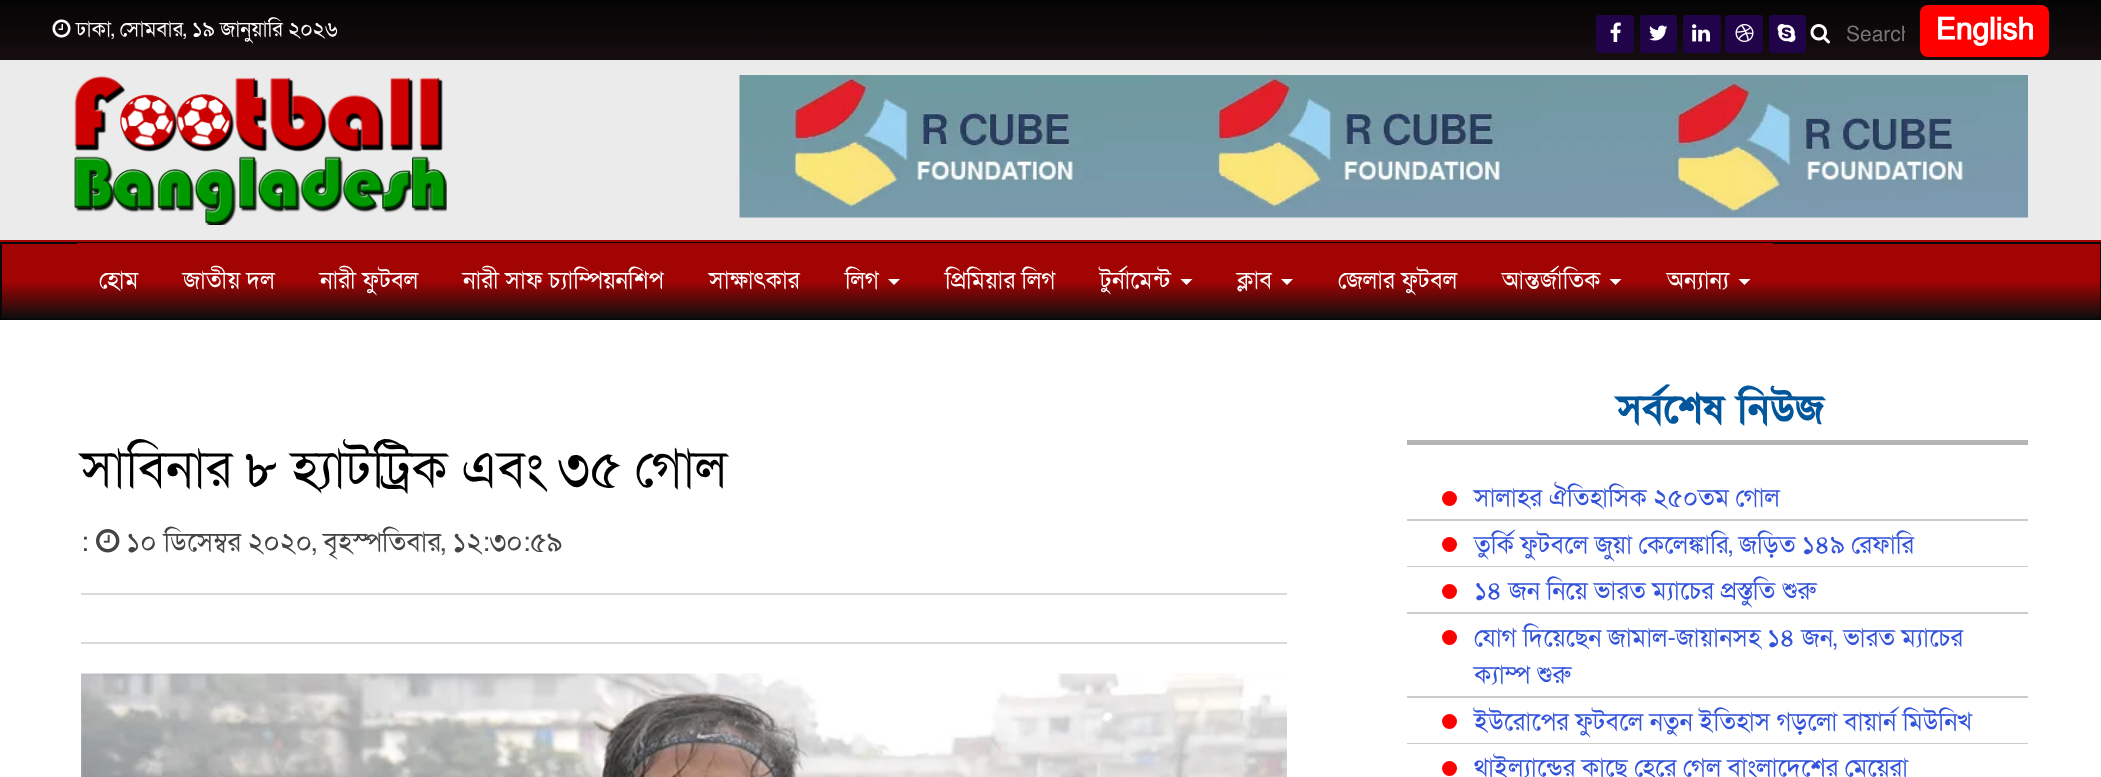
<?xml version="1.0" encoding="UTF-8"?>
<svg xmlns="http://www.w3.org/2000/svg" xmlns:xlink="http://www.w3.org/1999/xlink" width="2101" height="777">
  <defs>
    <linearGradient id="g1" gradientUnits="userSpaceOnUse" x1="1051" y1="240" x2="1051" y2="0"><stop offset="0" stop-color="#2a2a2a" /><stop offset="0.5" stop-color="#28161a" /><stop offset="1" stop-color="#050404" /></linearGradient>
    <linearGradient id="g2" gradientUnits="userSpaceOnUse" x1="1051" y1="243" x2="1051" y2="318"><stop offset="0" stop-color="#a20303" /><stop offset="0.51" stop-color="#a20303" /><stop offset="1" stop-color="#0e0e0e" /></linearGradient>
    <linearGradient id="g3" gradientUnits="userSpaceOnUse" x1="925" y1="243" x2="925" y2="318"><stop offset="0" stop-color="#a20303" /><stop offset="0.51" stop-color="#a20303" /><stop offset="1" stop-color="#0e0e0e" /></linearGradient>
    <clipPath id="clip1"><rect x="1845" y="20" width="60" height="28" /></clipPath>
  </defs>
  <rect width="100%" height="100%" fill="#ffffff" />
  <rect width="2101" height="60" fill="url(#g1)" />
  <rect y="240" width="2101" height="2" fill="#a30404" />
  <image x="52" y="19" width="19" height="19" xlink:href="image1.png" />
  <rect x="1596" y="15" width="38" height="38" rx="3" fill="#21034a" />
  <image x="1610" y="22" width="11" height="20" xlink:href="image2.png" />
  <rect x="1640" y="15" width="37" height="38" rx="3" fill="#21034a" />
  <image x="1649" y="25" width="19" height="16" xlink:href="image3.png" />
  <rect x="1683" y="15" width="38" height="38" rx="3" fill="#21034a" />
  <image x="1692" y="24" width="18" height="18" xlink:href="image4.png" />
  <rect x="1725" y="15" width="38" height="38" rx="3" fill="#21034a" />
  <image x="1735" y="24" width="19" height="18" xlink:href="image5.png" />
  <rect x="1769" y="15" width="37" height="38" rx="3" fill="#21034a" />
  <image x="1777" y="24" width="19" height="18" xlink:href="image6.png" />
  <image x="1810" y="24" width="20" height="20" xlink:href="image7.png" />
  <rect x="1920" y="5" width="129" height="52" rx="8" fill="#ff0000" />
  <rect y="60" width="2101" height="180" fill="#ecebeb" />
  <image x="74" y="76" width="373" height="149" xlink:href="image8.png" />
  <image x="739" y="75" width="1289" height="143" xlink:href="image9.png" />
  <rect x="2" y="244" width="2098" height="74" fill="url(#g2)" />
  <rect x="1" y="243" width="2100" height="76" fill="none" stroke="#080808" stroke-width="2" />
  <rect x="77" y="243" width="1696" height="1" fill="url(#g3)" />
  <path d="M 888 279 h 12 l -6 6 z" fill="#ffffff" />
  <path d="M 1180.5 279 h 12 l -6 6 z" fill="#ffffff" />
  <path d="M 1281 279 h 12 l -6 6 z" fill="#ffffff" />
  <path d="M 1609.5 279 h 12 l -6 6 z" fill="#ffffff" />
  <path d="M 1738.5 279 h 12 l -6 6 z" fill="#ffffff" />
  <image x="96" y="529" width="24" height="24" xlink:href="image10.png" />
  <rect x="81" y="593" width="1206" height="2" fill="#dadada" />
  <rect x="81" y="642" width="1206" height="2" fill="#dadada" />
  <image x="81" y="673" width="1206" height="104" xlink:href="image11.png" />
  <rect x="1407" y="440" width="621" height="5" fill="#b5b5b5" />
  <rect x="1407" y="519" width="621" height="2" fill="#cccccc" />
  <circle cx="1449.5" cy="498.5" r="7.5" fill="#ff0000" />
  <rect x="1407" y="566" width="621" height="1" fill="#cccccc" />
  <circle cx="1449.5" cy="544.5" r="7.5" fill="#ff0000" />
  <rect x="1407" y="612" width="621" height="2" fill="#cccccc" />
  <circle cx="1449.5" cy="591.5" r="7.5" fill="#ff0000" />
  <rect x="1407" y="696" width="621" height="2" fill="#cccccc" />
  <circle cx="1449.5" cy="637.5" r="7.5" fill="#ff0000" />
  <rect x="1407" y="743" width="621" height="1" fill="#cccccc" />
  <circle cx="1449.5" cy="721.5" r="7.5" fill="#ff0000" />
  <circle cx="1449.5" cy="768.5" r="7.5" fill="#ff0000" />
  <text x="76" y="36" style="font-family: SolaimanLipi; font-size: 21px; fill: #ffffff">ঢাকা, সোমবার, ১৯ জানুয়ারি ২০২৬</text>
  <g clip-path="url(#clip1)">
    <text x="1846" y="41" style="font-family: SolaimanLipi; font-size: 21px; fill: #757575">Search</text>
  </g>
  <text x="1936" y="39" style="font-family: SolaimanLipi; font-size: 30px; font-weight: bold; fill: #ffffff">English</text>
  <text x="99" y="288" style="font-family: SolaimanLipi; font-size: 24px; fill: #ffffff">হোম</text>
  <text x="183" y="288" style="font-family: SolaimanLipi; font-size: 24px; fill: #ffffff">জাতীয় দল</text>
  <text x="320" y="288" style="font-family: SolaimanLipi; font-size: 24px; fill: #ffffff">নারী ফুটবল</text>
  <text x="463" y="288" style="font-family: SolaimanLipi; font-size: 24px; fill: #ffffff">নারী সাফ চ্যাম্পিয়নশিপ</text>
  <text x="709" y="288" style="font-family: SolaimanLipi; font-size: 24px; fill: #ffffff">সাক্ষাৎকার</text>
  <text x="845" y="288" style="font-family: SolaimanLipi; font-size: 24px; fill: #ffffff">লিগ</text>
  <text x="945" y="288" style="font-family: SolaimanLipi; font-size: 24px; fill: #ffffff">প্রিমিয়ার লিগ</text>
  <text x="1100" y="288" style="font-family: SolaimanLipi; font-size: 24px; fill: #ffffff">টুর্নামেন্ট</text>
  <text x="1237" y="288" style="font-family: SolaimanLipi; font-size: 24px; fill: #ffffff">ক্লাব</text>
  <text x="1338" y="288" style="font-family: SolaimanLipi; font-size: 24px; fill: #ffffff">জেলার ফুটবল</text>
  <text x="1502" y="288" style="font-family: SolaimanLipi; font-size: 24px; fill: #ffffff">আন্তর্জাতিক</text>
  <text x="1667" y="288" style="font-family: SolaimanLipi; font-size: 24px; fill: #ffffff">অন্যান্য</text>
  <text x="81" y="486" style="font-family: SolaimanLipi; font-size: 52.5px; fill: #000000">সাবিনার ৮ হ্যাটট্রিক এবং ৩৫ গোল</text>
  <text x="81" y="551" style="font-family: SolaimanLipi; font-size: 27.25px; fill: #434443">:</text>
  <text x="126" y="551" style="font-family: SolaimanLipi; font-size: 27.25px; fill: #434443">১০ ডিসেম্বর ২০২০, বৃহস্পতিবার, ১২:৩০:৫৯</text>
  <text x="1617" y="422" style="font-family: SolaimanLipi; font-size: 40px; font-weight: bold; fill: #02569b">সর্বশেষ নিউজ</text>
  <text x="1474" y="506" style="font-family: SolaimanLipi; font-size: 25.25px; fill: #3253da">সালাহর ঐতিহাসিক ২৫০তম গোল</text>
  <text x="1474" y="553" style="font-family: SolaimanLipi; font-size: 25.25px; fill: #3253da">তুর্কি ফুটবলে জুয়া কেলেঙ্কারি, জড়িত ১৪৯ রেফারি</text>
  <text x="1474" y="599" style="font-family: SolaimanLipi; font-size: 25.25px; fill: #3253da">১৪ জন নিয়ে ভারত ম্যাচের প্রস্তুতি শুরু</text>
  <text x="1474" y="646" style="font-family: SolaimanLipi; font-size: 25.25px; fill: #3253da">যোগ দিয়েছেন জামাল-জায়ানসহ ১৪ জন, ভারত ম্যাচের</text>
  <text x="1474" y="683" style="font-family: SolaimanLipi; font-size: 25.25px; fill: #3253da">ক্যাম্প শুরু</text>
  <text x="1474" y="730" style="font-family: SolaimanLipi; font-size: 25.25px; fill: #3253da">ইউরোপের ফুটবলে নতুন ইতিহাস গড়লো বায়ার্ন মিউনিখ</text>
  <text x="1474" y="776" style="font-family: SolaimanLipi; font-size: 25.25px; fill: #3253da">থাইল্যান্ডের কাছে হেরে গেল বাংলাদেশের মেয়েরা</text>
</svg>
